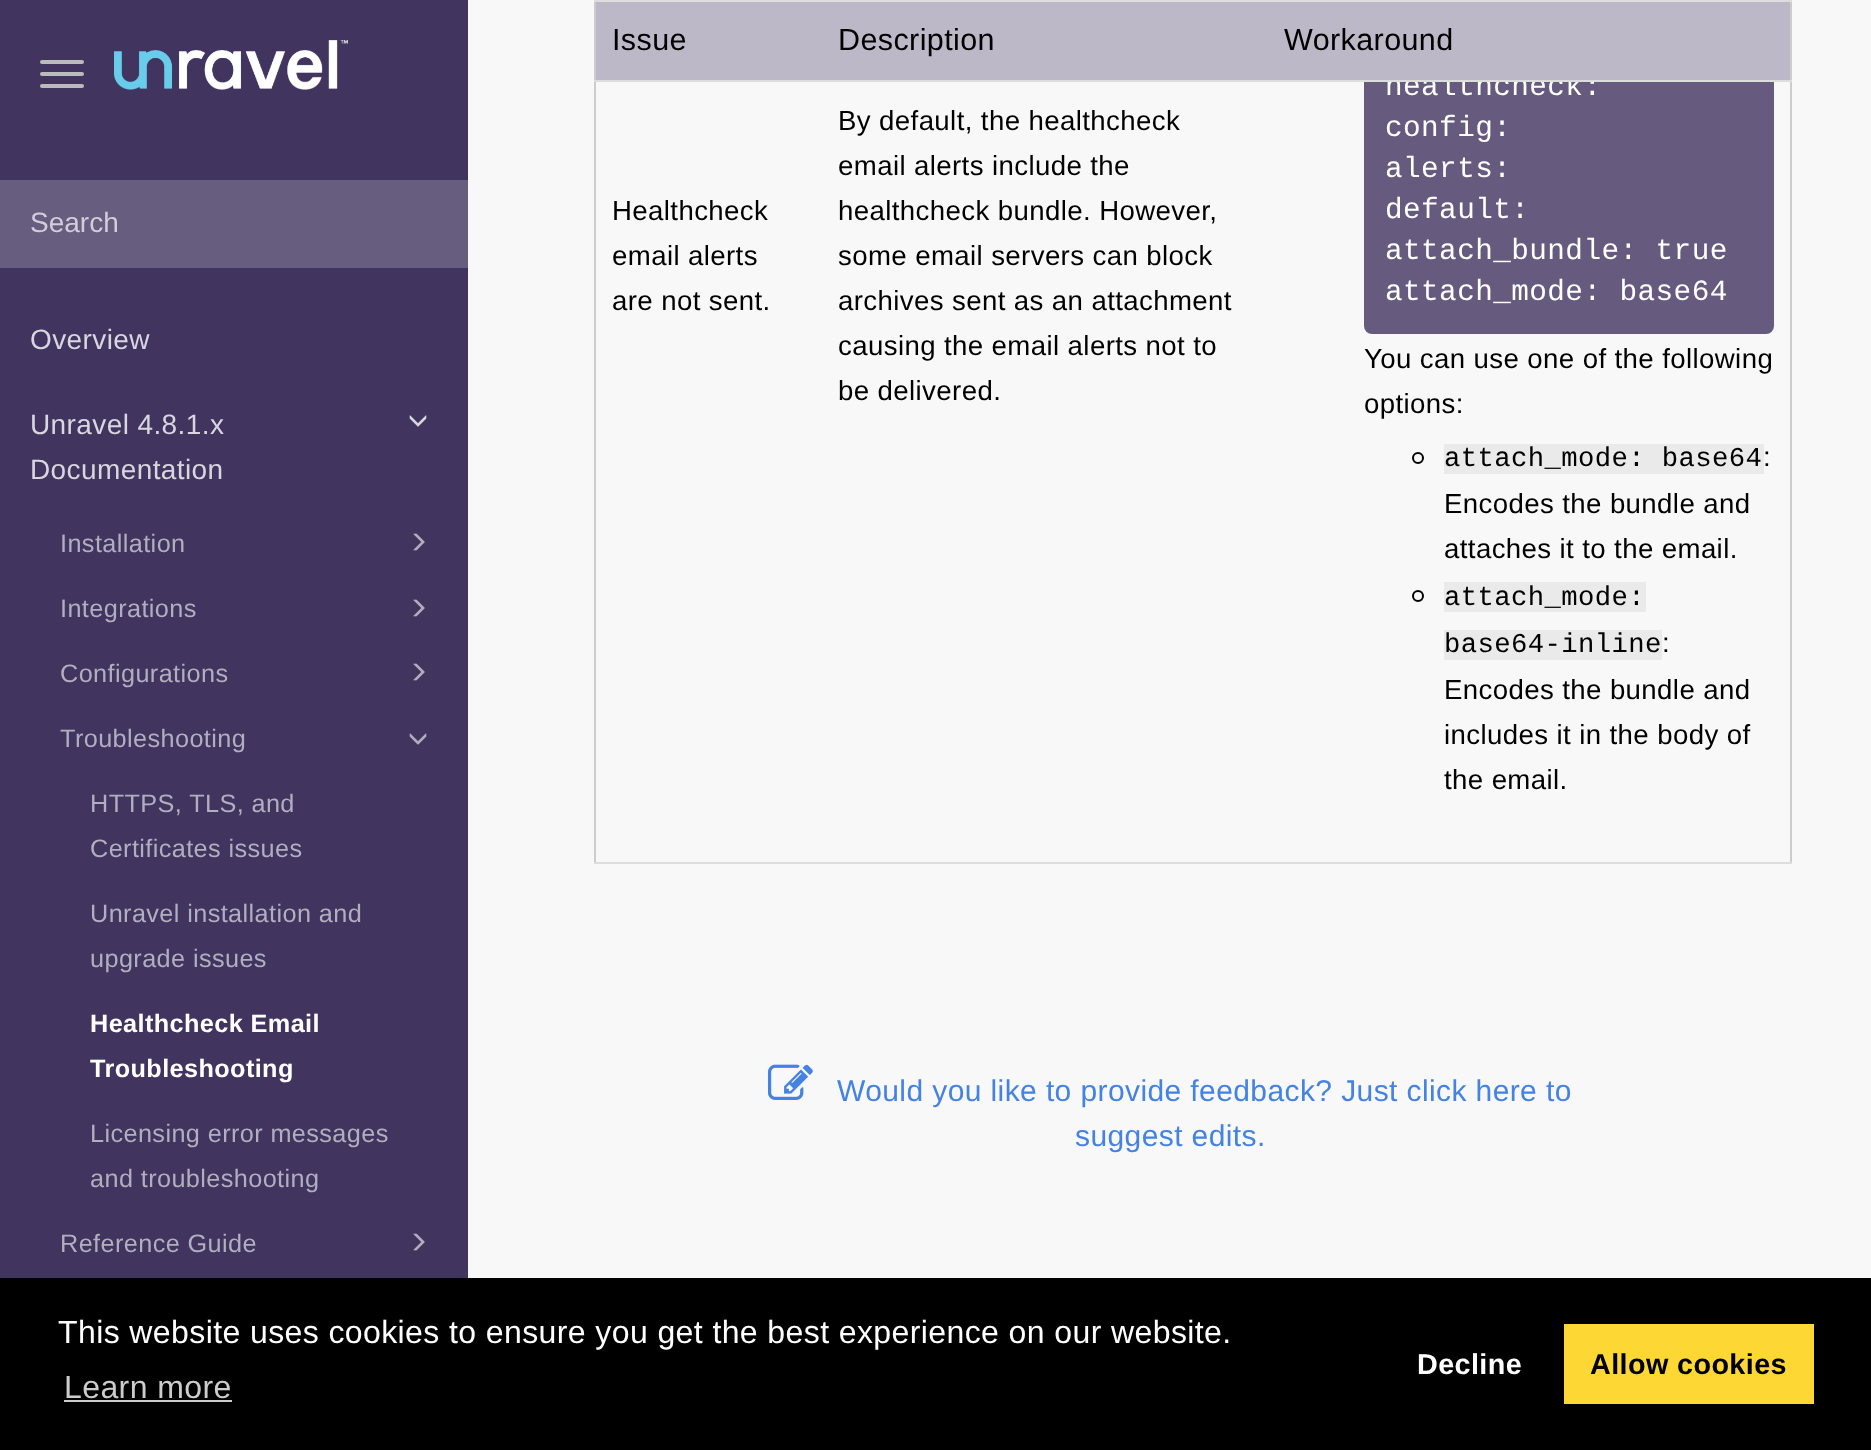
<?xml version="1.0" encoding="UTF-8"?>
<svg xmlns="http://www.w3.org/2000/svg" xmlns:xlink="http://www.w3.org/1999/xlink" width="1871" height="1450">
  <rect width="100%" height="100%" fill="#f8f8f8" />
  <rect width="468" height="1278" fill="#41345f" />
  <rect x="40" y="60" width="44" height="4" rx="2" fill="#bbbbbb" />
  <rect x="40" y="72" width="44" height="4" rx="2" fill="#bbbbbb" />
  <rect x="40" y="84" width="44" height="4" rx="2" fill="#bbbbbb" />
  <image x="114" y="40" width="234" height="50" xlink:href="image1.png" />
  <rect y="180" width="468" height="88" fill="#675d7f" />
  <image x="409" y="415" width="18" height="12" xlink:href="image2.png" />
  <image x="413" y="533" width="12" height="18" xlink:href="image3.png" />
  <image x="413" y="599" width="12" height="18" xlink:href="image3.png" />
  <image x="413" y="663" width="12" height="18" xlink:href="image3.png" />
  <image x="409" y="733" width="18" height="12" xlink:href="image4.png" />
  <image x="413" y="1233" width="12" height="18" xlink:href="image3.png" />
  <rect x="1790" width="2" height="80" fill="#cccccc" />
  <rect x="594" width="2" height="80" fill="#cccccc" />
  <rect x="594" width="1198" height="2" fill="#dddddd" />
  <rect x="1790" y="82" width="2" height="782" fill="#cccccc" />
  <rect x="594" y="82" width="2" height="782" fill="#cccccc" />
  <rect x="594" y="862" width="1198" height="2" fill="#dddddd" />
  <rect x="1364" y="4" width="410" height="330" rx="8" fill="#665b7e" />
  <circle cx="1418" cy="458" r="5" fill="none" stroke="#000000" stroke-width="2" />
  <rect x="1444" y="444" width="320" height="30" fill="#eaeaea" />
  <circle cx="1418" cy="596" r="5" fill="none" stroke="#000000" stroke-width="2" />
  <rect x="1444" y="582" width="202" height="30" fill="#eaeaea" />
  <rect x="1444" y="630" width="218" height="30" fill="#eaeaea" />
  <image x="768" y="1064" width="45" height="36" xlink:href="image5.png" />
  <rect y="1278" width="1871" height="172" fill="#000000" />
  <rect x="64" y="1400" width="168" height="2" fill="#cccccc" />
  <rect x="1564" y="1324" width="250" height="80" fill="#fdd835" />
  <text x="30" y="232" style="font-family: Liberation Sans; font-size: 28px; fill: #d1ced9">Search</text>
  <text x="30" y="349" style="font-family: Liberation Sans; font-size: 28px; letter-spacing: 0.4px; fill: #d9d6df">Overview</text>
  <text x="30" y="434" style="font-family: Liberation Sans; font-size: 28px; letter-spacing: 0.4px; fill: #d9d6df">Unravel 4.8.1.x</text>
  <text x="30" y="479" style="font-family: Liberation Sans; font-size: 28px; letter-spacing: 0.4px; fill: #d9d6df">Documentation</text>
  <text x="60" y="552" style="font-family: Liberation Sans; font-size: 25.25px; letter-spacing: 0.4px; fill: #b3aebf">Installation</text>
  <text x="60" y="617" style="font-family: Liberation Sans; font-size: 25.25px; letter-spacing: 0.4px; fill: #b3aebf">Integrations</text>
  <text x="60" y="682" style="font-family: Liberation Sans; font-size: 25.25px; letter-spacing: 0.4px; fill: #b3aebf">Configurations</text>
  <text x="60" y="747" style="font-family: Liberation Sans; font-size: 25.25px; letter-spacing: 0.4px; fill: #b3aebf">Troubleshooting</text>
  <text x="90" y="812" style="font-family: Liberation Sans; font-size: 25.25px; letter-spacing: 0.4px; fill: #b3aebf">HTTPS, TLS, and</text>
  <text x="90" y="857" style="font-family: Liberation Sans; font-size: 25.25px; letter-spacing: 0.4px; fill: #b3aebf">Certificates issues</text>
  <text x="90" y="922" style="font-family: Liberation Sans; font-size: 25.25px; letter-spacing: 0.4px; fill: #b3aebf">Unravel installation and</text>
  <text x="90" y="967" style="font-family: Liberation Sans; font-size: 25.25px; letter-spacing: 0.4px; fill: #b3aebf">upgrade issues</text>
  <text x="90" y="1032" style="font-family: Liberation Sans; font-size: 25.25px; font-weight: bold; letter-spacing: 0.4px; fill: #ffffff">Healthcheck Email</text>
  <text x="90" y="1077" style="font-family: Liberation Sans; font-size: 25.25px; font-weight: bold; letter-spacing: 0.4px; fill: #ffffff">Troubleshooting</text>
  <text x="90" y="1142" style="font-family: Liberation Sans; font-size: 25.25px; letter-spacing: 0.4px; fill: #b3aebf">Licensing error messages</text>
  <text x="90" y="1187" style="font-family: Liberation Sans; font-size: 25.25px; letter-spacing: 0.4px; fill: #b3aebf">and troubleshooting</text>
  <text x="60" y="1252" style="font-family: Liberation Sans; font-size: 25.25px; letter-spacing: 0.4px; fill: #b3aebf">Reference Guide</text>
  <text x="612" y="220" style="font-family: Liberation Sans; font-size: 27.6px; letter-spacing: 0.4px; fill: #000000">Healthcheck</text>
  <text x="612" y="265" style="font-family: Liberation Sans; font-size: 27.6px; letter-spacing: 0.4px; fill: #000000">email alerts</text>
  <text x="612" y="310" style="font-family: Liberation Sans; font-size: 27.6px; letter-spacing: 0.4px; fill: #000000">are not sent.</text>
  <text x="838" y="130" style="font-family: Liberation Sans; font-size: 27.6px; letter-spacing: 0.4px; fill: #000000">By default, the healthcheck</text>
  <text x="838" y="175" style="font-family: Liberation Sans; font-size: 27.6px; letter-spacing: 0.4px; fill: #000000">email alerts include the</text>
  <text x="838" y="220" style="font-family: Liberation Sans; font-size: 27.6px; letter-spacing: 0.4px; fill: #000000">healthcheck bundle. However,</text>
  <text x="838" y="265" style="font-family: Liberation Sans; font-size: 27.6px; letter-spacing: 0.4px; fill: #000000">some email servers can block</text>
  <text x="838" y="310" style="font-family: Liberation Sans; font-size: 27.6px; letter-spacing: 0.4px; fill: #000000">archives sent as an attachment</text>
  <text x="838" y="355" style="font-family: Liberation Sans; font-size: 27.6px; letter-spacing: 0.4px; fill: #000000">causing the email alerts not to</text>
  <text x="838" y="400" style="font-family: Liberation Sans; font-size: 27.6px; letter-spacing: 0.4px; fill: #000000">be delivered.</text>
  <text x="1385" y="95" style="font-family: Liberation Mono; font-size: 29.4px; letter-spacing: 0.4px; fill: #ffffff">healthcheck:</text>
  <rect x="596" y="2" width="1194" height="78" fill="#bdb8c7" />
  <text x="1284" y="50" style="font-family: Liberation Sans; font-size: 30.5px; letter-spacing: 0.4px; fill: #000000">Workaround</text>
  <text x="838" y="50" style="font-family: Liberation Sans; font-size: 30.5px; letter-spacing: 0.4px; fill: #000000">Description</text>
  <text x="612" y="50" style="font-family: Liberation Sans; font-size: 30.5px; letter-spacing: 0.4px; fill: #000000">Issue</text>
  <rect x="594" y="80" width="1198" height="2" fill="#dddddd" />
  <text x="1385" y="136" style="font-family: Liberation Mono; font-size: 29.4px; letter-spacing: 0.4px; fill: #ffffff">config:</text>
  <text x="1385" y="177" style="font-family: Liberation Mono; font-size: 29.4px; letter-spacing: 0.4px; fill: #ffffff">alerts:</text>
  <text x="1385" y="218" style="font-family: Liberation Mono; font-size: 29.4px; letter-spacing: 0.4px; fill: #ffffff">default:</text>
  <text x="1385" y="259" style="font-family: Liberation Mono; font-size: 29.4px; letter-spacing: 0.4px; fill: #ffffff">attach_bundle: true</text>
  <text x="1385" y="300" style="font-family: Liberation Mono; font-size: 29.4px; letter-spacing: 0.4px; fill: #ffffff">attach_mode: base64</text>
  <text x="1364" y="368" style="font-family: Liberation Sans; font-size: 27.6px; letter-spacing: 0.4px; fill: #000000">You can use one of the following</text>
  <text x="1364" y="413" style="font-family: Liberation Sans; font-size: 27.6px; letter-spacing: 0.4px; fill: #000000">options:</text>
  <text x="1444" y="466" style="font-family: Liberation Mono; font-size: 27.25px; letter-spacing: 0.4px; fill: #000000">attach_mode: base64</text>
  <text x="1763" y="466" style="font-family: Liberation Sans; font-size: 27.6px; letter-spacing: 0.4px; fill: #000000">:</text>
  <text x="1444" y="513" style="font-family: Liberation Sans; font-size: 27.6px; letter-spacing: 0.4px; fill: #000000">Encodes the bundle and</text>
  <text x="1444" y="558" style="font-family: Liberation Sans; font-size: 27.6px; letter-spacing: 0.4px; fill: #000000">attaches it to the email.</text>
  <text x="1444" y="605" style="font-family: Liberation Mono; font-size: 27.25px; letter-spacing: 0.4px; fill: #000000">attach_mode:</text>
  <text x="1444" y="652" style="font-family: Liberation Mono; font-size: 27.25px; letter-spacing: 0.4px; fill: #000000">base64-inline</text>
  <text x="1662" y="652" style="font-family: Liberation Sans; font-size: 27.6px; letter-spacing: 0.4px; fill: #000000">:</text>
  <text x="1444" y="699" style="font-family: Liberation Sans; font-size: 27.6px; letter-spacing: 0.4px; fill: #000000">Encodes the bundle and</text>
  <text x="1444" y="744" style="font-family: Liberation Sans; font-size: 27.6px; letter-spacing: 0.4px; fill: #000000">includes it in the body of</text>
  <text x="1444" y="789" style="font-family: Liberation Sans; font-size: 27.6px; letter-spacing: 0.4px; fill: #000000">the email.</text>
  <text x="837" y="1101" style="font-family: Liberation Sans; font-size: 30px; letter-spacing: 0.4px; fill: #4482e3">Would you like to provide feedback? Just click here to</text>
  <text x="1075" y="1146" style="font-family: Liberation Sans; font-size: 30px; letter-spacing: 0.4px; fill: #4482e3">suggest edits.</text>
  <text x="58" y="1343" style="font-family: Liberation Sans; font-size: 32px; letter-spacing: 0.4px; fill: #ffffff">This website uses cookies to ensure you get the best experience on our website.</text>
  <text x="64" y="1398" style="font-family: Liberation Sans; font-size: 32px; letter-spacing: 0.4px; fill: #cccccc">Learn more</text>
  <text x="1417" y="1374" style="font-family: Liberation Sans; font-size: 28.75px; font-weight: bold; letter-spacing: 0.4px; fill: #ffffff">Decline</text>
  <text x="1590" y="1374" style="font-family: Liberation Sans; font-size: 28.75px; font-weight: bold; letter-spacing: 0.4px; fill: #000000">Allow cookies</text>
</svg>
